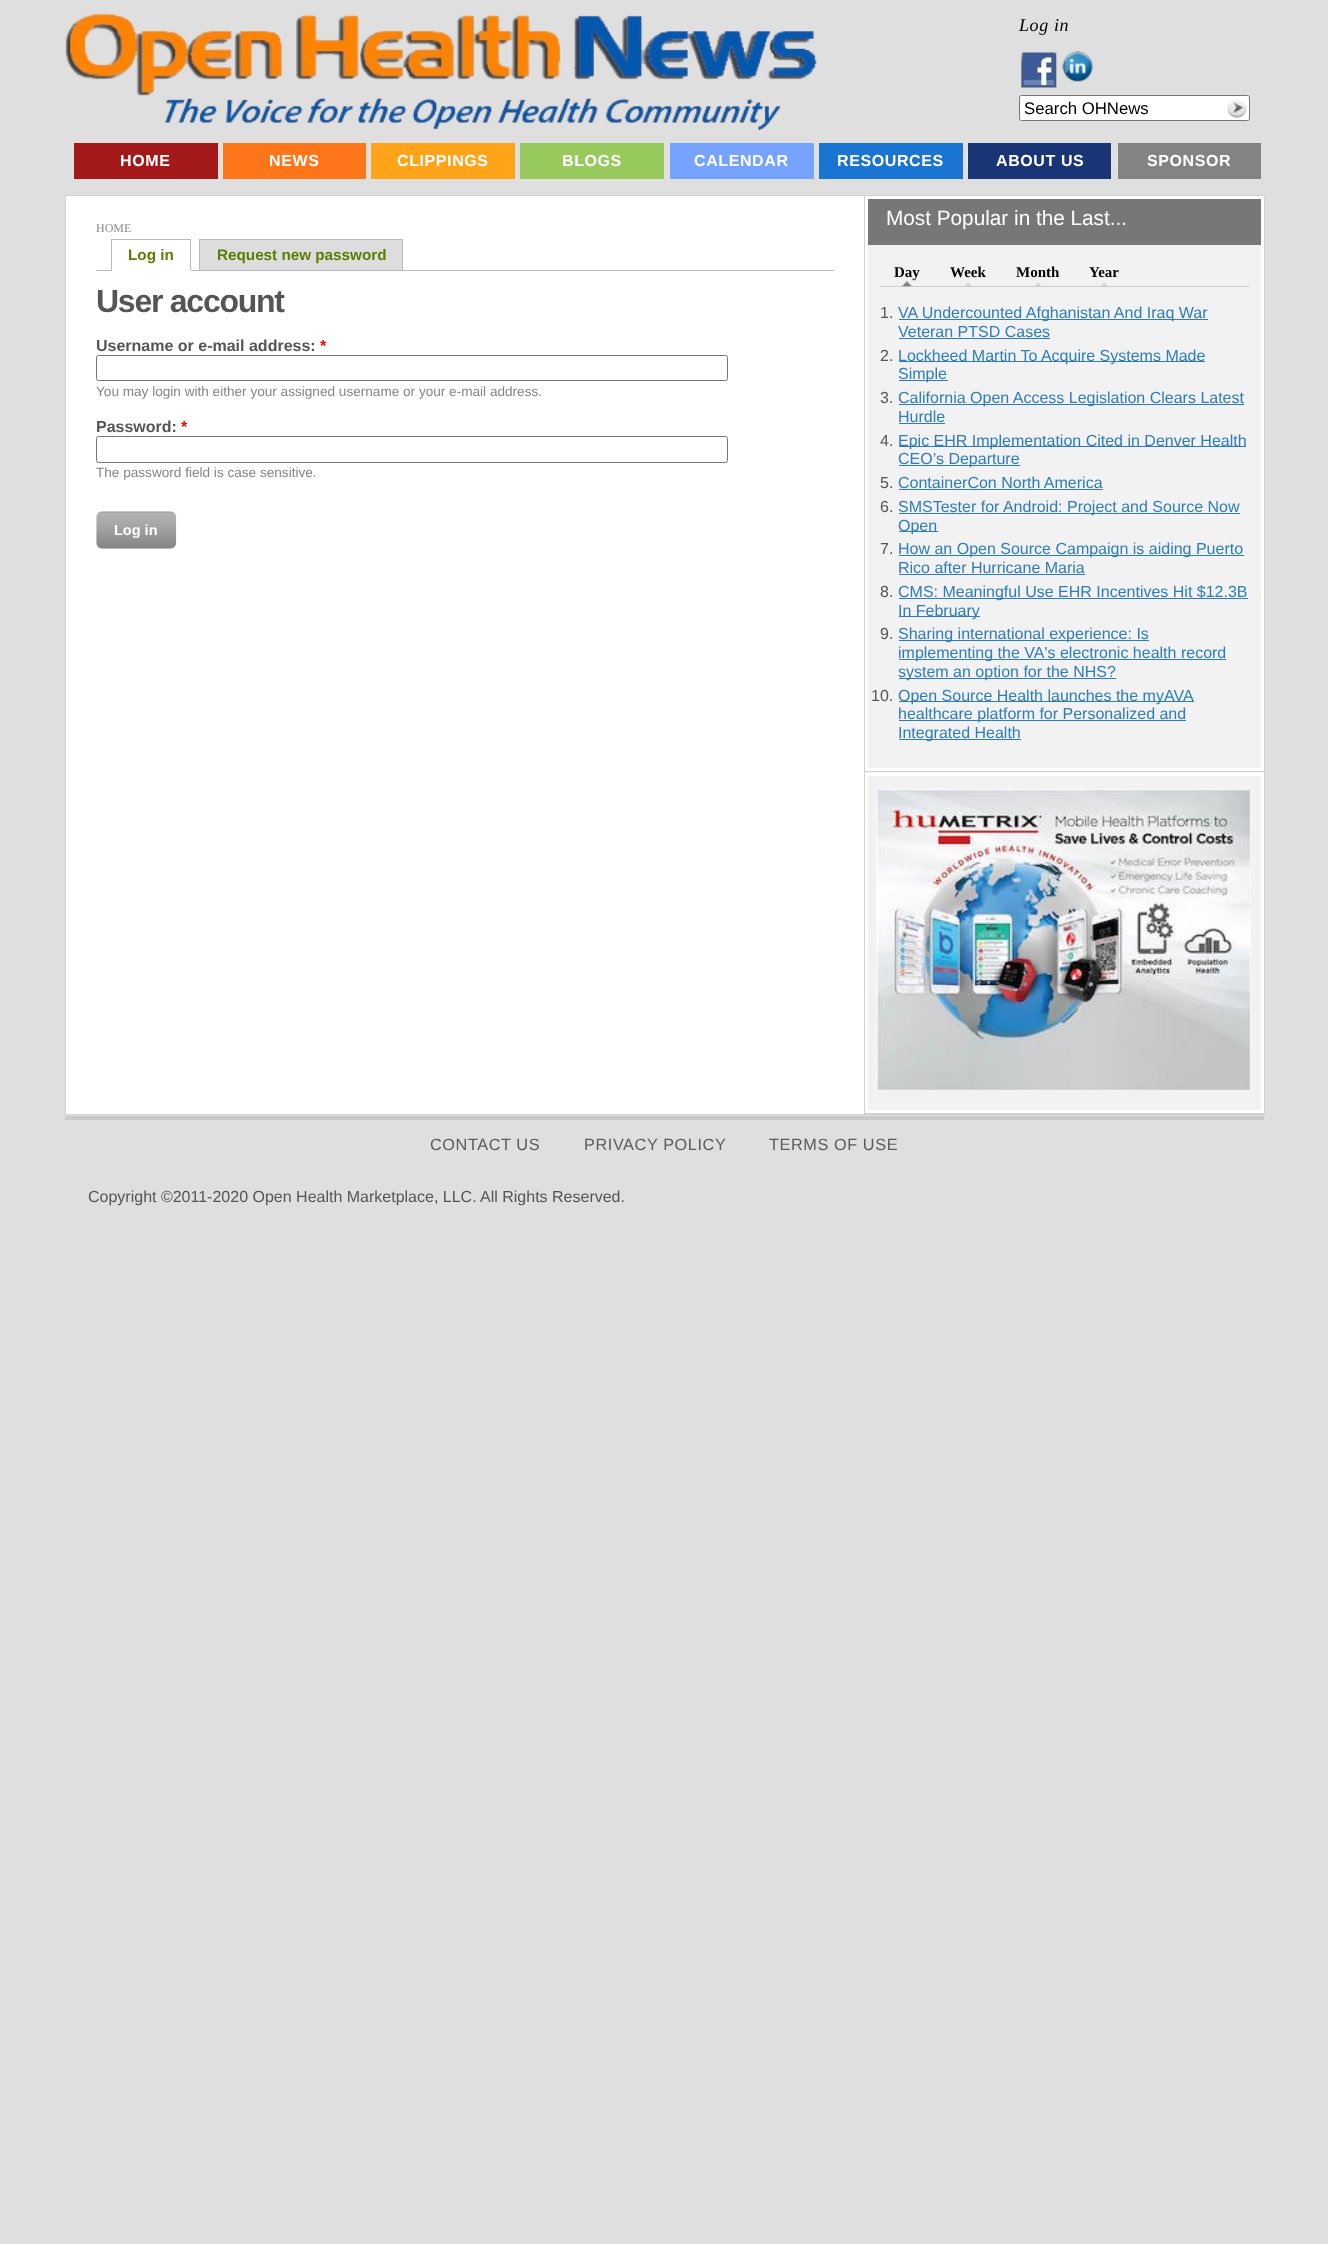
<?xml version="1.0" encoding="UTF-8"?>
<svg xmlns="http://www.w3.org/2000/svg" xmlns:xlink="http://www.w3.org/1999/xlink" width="1328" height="2244">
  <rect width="100%" height="100%" fill="#dfdfdf" />
  <image x="65" y="13" width="752" height="117" xlink:href="image1.png" />
  <image x="1021" y="51" width="36" height="38" xlink:href="image2.png" />
  <image x="1062" y="51" width="31" height="31" xlink:href="image3.png" />
  <rect x="1019.5" y="95.5" width="230" height="25" rx="2" fill="#ffffff" stroke="#767676" />
  <image x="1227" y="99" width="20" height="19" xlink:href="image4.png" />
  <image x="73" y="150" width="1" height="22" xlink:href="image5.png" />
  <rect x="74" y="143" width="144" height="36" fill="#a31919" />
  <image x="222" y="150" width="1" height="22" xlink:href="image6.png" />
  <rect x="223" y="143" width="143" height="36" fill="#ff751a" />
  <rect x="371" y="143" width="144" height="36" fill="#ffa418" />
  <rect x="520" y="143" width="144" height="36" fill="#98c95c" />
  <rect x="670" y="143" width="144" height="36" fill="#76a3ff" />
  <image x="818" y="150" width="1" height="22" xlink:href="image5.png" />
  <rect x="819" y="143" width="144" height="36" fill="#1a75d2" />
  <image x="967" y="150" width="1" height="22" xlink:href="image6.png" />
  <rect x="968" y="143" width="143" height="36" fill="#193576" />
  <image x="1117" y="150" width="1" height="22" xlink:href="image6.png" />
  <rect x="1118" y="143" width="143" height="36" fill="#838383" />
  <rect x="66" y="196" width="798" height="918" fill="#ffffff" />
  <rect x="65.5" y="195.5" width="1199" height="919" fill="none" stroke="#d1d1d1" />
  <rect x="96" y="270" width="738" height="1" fill="#bbbbbb" />
  <rect x="111" y="239" width="80" height="1" fill="#bbbbbb" />
  <rect x="190" y="239" width="1" height="32" fill="#bbbbbb" />
  <rect x="111" y="270" width="80" height="1" fill="#ffffff" />
  <rect x="111" y="239" width="1" height="32" fill="#bbbbbb" />
  <rect x="199.5" y="239.5" width="203" height="31" fill="#dddddd" stroke="#bbbbbb" />
  <rect x="96.5" y="355.5" width="631" height="25" rx="2" fill="none" stroke="#767676" />
  <rect x="96.5" y="436.5" width="631" height="26" rx="2" fill="none" stroke="#767676" />
  <image x="96" y="511" width="81" height="38" xlink:href="image7.png" />
  <rect x="864" y="196" width="1" height="918" fill="#d1d1d1" />
  <rect x="868" y="245" width="393" height="523" fill="#f2f2f2" />
  <rect x="866.5" y="197.5" width="396" height="572" fill="none" stroke="#ffffff" stroke-width="3" />
  <rect x="868" y="199" width="393" height="46" fill="#777777" />
  <rect x="880" y="286" width="369" height="1" fill="#cccccc" />
  <image x="902" y="281" width="10" height="6" xlink:href="image8.png" />
  <image x="965" y="282" width="7" height="4" xlink:href="image9.png" />
  <image x="1035" y="282" width="7" height="4" xlink:href="image10.png" />
  <image x="1101" y="282" width="7" height="4" xlink:href="image11.png" />
  <rect x="899" y="319" width="309" height="1" fill="#2e7db9" />
  <rect x="899" y="338" width="151" height="1" fill="#2e7db9" />
  <rect x="899" y="361" width="306" height="1" fill="#2e7db9" />
  <rect x="899" y="380" width="49" height="1" fill="#2e7db9" />
  <rect x="899" y="404" width="345" height="1" fill="#2e7db9" />
  <rect x="899" y="423" width="46" height="1" fill="#2e7db9" />
  <rect x="899" y="446" width="347" height="1" fill="#2e7db9" />
  <rect x="899" y="465" width="121" height="1" fill="#2e7db9" />
  <rect x="899" y="489" width="204" height="1" fill="#2e7db9" />
  <rect x="899" y="513" width="341" height="1" fill="#2e7db9" />
  <rect x="899" y="531" width="39" height="1" fill="#2e7db9" />
  <rect x="899" y="555" width="345" height="1" fill="#2e7db9" />
  <rect x="899" y="574" width="186" height="1" fill="#2e7db9" />
  <rect x="899" y="598" width="349" height="1" fill="#2e7db9" />
  <rect x="899" y="616" width="81" height="1" fill="#2e7db9" />
  <rect x="899" y="640" width="250" height="1" fill="#2e7db9" />
  <rect x="899" y="659" width="327" height="1" fill="#2e7db9" />
  <rect x="899" y="678" width="217" height="1" fill="#2e7db9" />
  <rect x="899" y="701" width="295" height="1" fill="#2e7db9" />
  <rect x="899" y="720" width="287" height="1" fill="#2e7db9" />
  <rect x="899" y="739" width="122" height="1" fill="#2e7db9" />
  <rect x="865" y="772" width="399" height="338" fill="#f2f2f2" />
  <rect x="865" y="771" width="399" height="1" fill="#d1d1d1" />
  <rect x="865" y="1113" width="399" height="1" fill="#d1d1d1" />
  <rect x="866.5" y="774.5" width="396" height="337" fill="none" stroke="#ffffff" stroke-width="3" />
  <image x="876" y="789" width="375" height="302" xlink:href="image12.png" />
  <rect x="65" y="1116" width="1199" height="4" fill="#cacaca" />
  <text x="1019" y="31" style="font-family: Liberation Serif; font-size: 18px; font-style: italic; letter-spacing: 0.6px; fill: #000000">Log in</text>
  <text x="1024" y="114" style="font-family: Liberation Sans; font-size: 16.75px; fill: #000000">Search OHNews</text>
  <text x="120" y="166" style="font-family: Liberation Sans; font-size: 16px; font-weight: bold; letter-spacing: 0.6px; fill: #ffffff">HOME</text>
  <text x="269" y="166" style="font-family: Liberation Sans; font-size: 16px; font-weight: bold; letter-spacing: 0.6px; fill: #ffffff">NEWS</text>
  <text x="397" y="166" style="font-family: Liberation Sans; font-size: 16px; font-weight: bold; letter-spacing: 0.6px; fill: #ffffff">CLIPPINGS</text>
  <text x="562" y="166" style="font-family: Liberation Sans; font-size: 16px; font-weight: bold; letter-spacing: 0.6px; fill: #ffffff">BLOGS</text>
  <text x="694" y="166" style="font-family: Liberation Sans; font-size: 16px; font-weight: bold; letter-spacing: 0.6px; fill: #ffffff">CALENDAR</text>
  <text x="837" y="166" style="font-family: Liberation Sans; font-size: 16px; font-weight: bold; letter-spacing: 0.6px; fill: #ffffff">RESOURCES</text>
  <text x="996" y="166" style="font-family: Liberation Sans; font-size: 16px; font-weight: bold; letter-spacing: 0.6px; fill: #ffffff">ABOUT US</text>
  <text x="1147" y="166" style="font-family: Liberation Sans; font-size: 16px; font-weight: bold; letter-spacing: 0.6px; fill: #ffffff">SPONSOR</text>
  <text x="96" y="232" style="font-family: Liberation Serif; font-size: 12px; fill: #868686">HOME</text>
  <text x="128" y="260" style="font-family: Liberation Sans; font-size: 15.25px; font-weight: bold; fill: #5c7d03">Log in</text>
  <text x="217" y="260" style="font-family: Liberation Sans; font-size: 15.25px; font-weight: bold; fill: #5c7d03">Request new password</text>
  <text x="96" y="312" style="font-family: Liberation Sans; font-size: 32px; font-weight: bold; letter-spacing: -1.25px; fill: #555555">User account</text>
  <text x="96" y="351" style="font-family: Liberation Sans; font-size: 16px; font-weight: bold; fill: #555555">Username or e-mail address:</text>
  <text x="320" y="351" style="font-family: Liberation Sans; font-size: 16px; font-weight: bold; fill: #ff0000">*</text>
  <text x="96" y="396" style="font-family: Liberation Sans; font-size: 13.6px; fill: #868686">You may login with either your assigned username or your e-mail address.</text>
  <text x="96" y="432" style="font-family: Liberation Sans; font-size: 16px; font-weight: bold; fill: #555555">Password:</text>
  <text x="181" y="432" style="font-family: Liberation Sans; font-size: 16px; font-weight: bold; fill: #ff0000">*</text>
  <text x="96" y="477" style="font-family: Liberation Sans; font-size: 13.6px; fill: #868686">The password field is case sensitive.</text>
  <text x="114" y="535" style="font-family: Liberation Sans; font-size: 14.5px; font-weight: bold; fill: #ffffff">Log in</text>
  <text x="886" y="225" style="font-family: Liberation Sans; font-size: 20.75px; fill: #ffffff">Most Popular in the Last...</text>
  <text x="894" y="277" style="font-family: Liberation Serif; font-size: 15px; font-weight: bold; fill: #000000">Day</text>
  <text x="950" y="277" style="font-family: Liberation Serif; font-size: 15px; font-weight: bold; fill: #000000">Week</text>
  <text x="1016" y="277" style="font-family: Liberation Serif; font-size: 15px; font-weight: bold; fill: #000000">Month</text>
  <text x="1089" y="277" style="font-family: Liberation Serif; font-size: 15px; font-weight: bold; fill: #000000">Year</text>
  <text x="880" y="318" style="font-family: Liberation Sans; font-size: 16px; fill: #555555">1.</text>
  <text x="898" y="318" style="font-family: Liberation Sans; font-size: 16px; fill: #2e7db9">VA Undercounted Afghanistan And Iraq War</text>
  <text x="898" y="337" style="font-family: Liberation Sans; font-size: 16px; fill: #2e7db9">Veteran PTSD Cases</text>
  <text x="880" y="361" style="font-family: Liberation Sans; font-size: 16px; fill: #555555">2.</text>
  <text x="898" y="361" style="font-family: Liberation Sans; font-size: 16px; fill: #2e7db9">Lockheed Martin To Acquire Systems Made</text>
  <text x="898" y="379" style="font-family: Liberation Sans; font-size: 16px; fill: #2e7db9">Simple</text>
  <text x="880" y="403" style="font-family: Liberation Sans; font-size: 16px; fill: #555555">3.</text>
  <text x="898" y="403" style="font-family: Liberation Sans; font-size: 16px; fill: #2e7db9">California Open Access Legislation Clears Latest</text>
  <text x="898" y="422" style="font-family: Liberation Sans; font-size: 16px; fill: #2e7db9">Hurdle</text>
  <text x="880" y="446" style="font-family: Liberation Sans; font-size: 16px; fill: #555555">4.</text>
  <text x="898" y="446" style="font-family: Liberation Sans; font-size: 16px; fill: #2e7db9">Epic EHR Implementation Cited in Denver Health</text>
  <text x="898" y="464" style="font-family: Liberation Sans; font-size: 16px; fill: #2e7db9">CEO’s Departure</text>
  <text x="880" y="488" style="font-family: Liberation Sans; font-size: 16px; fill: #555555">5.</text>
  <text x="898" y="488" style="font-family: Liberation Sans; font-size: 16px; fill: #2e7db9">ContainerCon North America</text>
  <text x="880" y="512" style="font-family: Liberation Sans; font-size: 16px; fill: #555555">6.</text>
  <text x="898" y="512" style="font-family: Liberation Sans; font-size: 16px; fill: #2e7db9">SMSTester for Android: Project and Source Now</text>
  <text x="898" y="531" style="font-family: Liberation Sans; font-size: 16px; fill: #2e7db9">Open</text>
  <text x="880" y="554" style="font-family: Liberation Sans; font-size: 16px; fill: #555555">7.</text>
  <text x="898" y="554" style="font-family: Liberation Sans; font-size: 16px; fill: #2e7db9">How an Open Source Campaign is aiding Puerto</text>
  <text x="898" y="573" style="font-family: Liberation Sans; font-size: 16px; fill: #2e7db9">Rico after Hurricane Maria</text>
  <text x="880" y="597" style="font-family: Liberation Sans; font-size: 16px; fill: #555555">8.</text>
  <text x="898" y="597" style="font-family: Liberation Sans; font-size: 16px; fill: #2e7db9">CMS: Meaningful Use EHR Incentives Hit $12.3B</text>
  <text x="898" y="616" style="font-family: Liberation Sans; font-size: 16px; fill: #2e7db9">In February</text>
  <text x="880" y="639" style="font-family: Liberation Sans; font-size: 16px; fill: #555555">9.</text>
  <text x="898" y="639" style="font-family: Liberation Sans; font-size: 16px; fill: #2e7db9">Sharing international experience: Is</text>
  <text x="898" y="658" style="font-family: Liberation Sans; font-size: 16px; fill: #2e7db9">implementing the VA's electronic health record</text>
  <text x="898" y="677" style="font-family: Liberation Sans; font-size: 16px; fill: #2e7db9">system an option for the NHS?</text>
  <text x="871" y="701" style="font-family: Liberation Sans; font-size: 16px; fill: #555555">10.</text>
  <text x="898" y="701" style="font-family: Liberation Sans; font-size: 16px; fill: #2e7db9">Open Source Health launches the myAVA</text>
  <text x="898" y="719" style="font-family: Liberation Sans; font-size: 16px; fill: #2e7db9">healthcare platform for Personalized and</text>
  <text x="898" y="738" style="font-family: Liberation Sans; font-size: 16px; fill: #2e7db9">Integrated Health</text>
  <text x="430" y="1150" style="font-family: Liberation Sans; font-size: 16.25px; letter-spacing: 0.6px; fill: #5b5b5b">CONTACT US</text>
  <text x="584" y="1150" style="font-family: Liberation Sans; font-size: 16.25px; letter-spacing: 0.6px; fill: #5b5b5b">PRIVACY POLICY</text>
  <text x="769" y="1150" style="font-family: Liberation Sans; font-size: 16.25px; letter-spacing: 0.6px; fill: #5b5b5b">TERMS OF USE</text>
  <text x="88" y="1202" style="font-family: Liberation Sans; font-size: 16px; fill: #555555">Copyright ©2011-2020 Open Health Marketplace, LLC.</text>
  <text x="480" y="1202" style="font-family: Liberation Sans; font-size: 16px; fill: #555555">All Rights Reserved.</text>
</svg>
